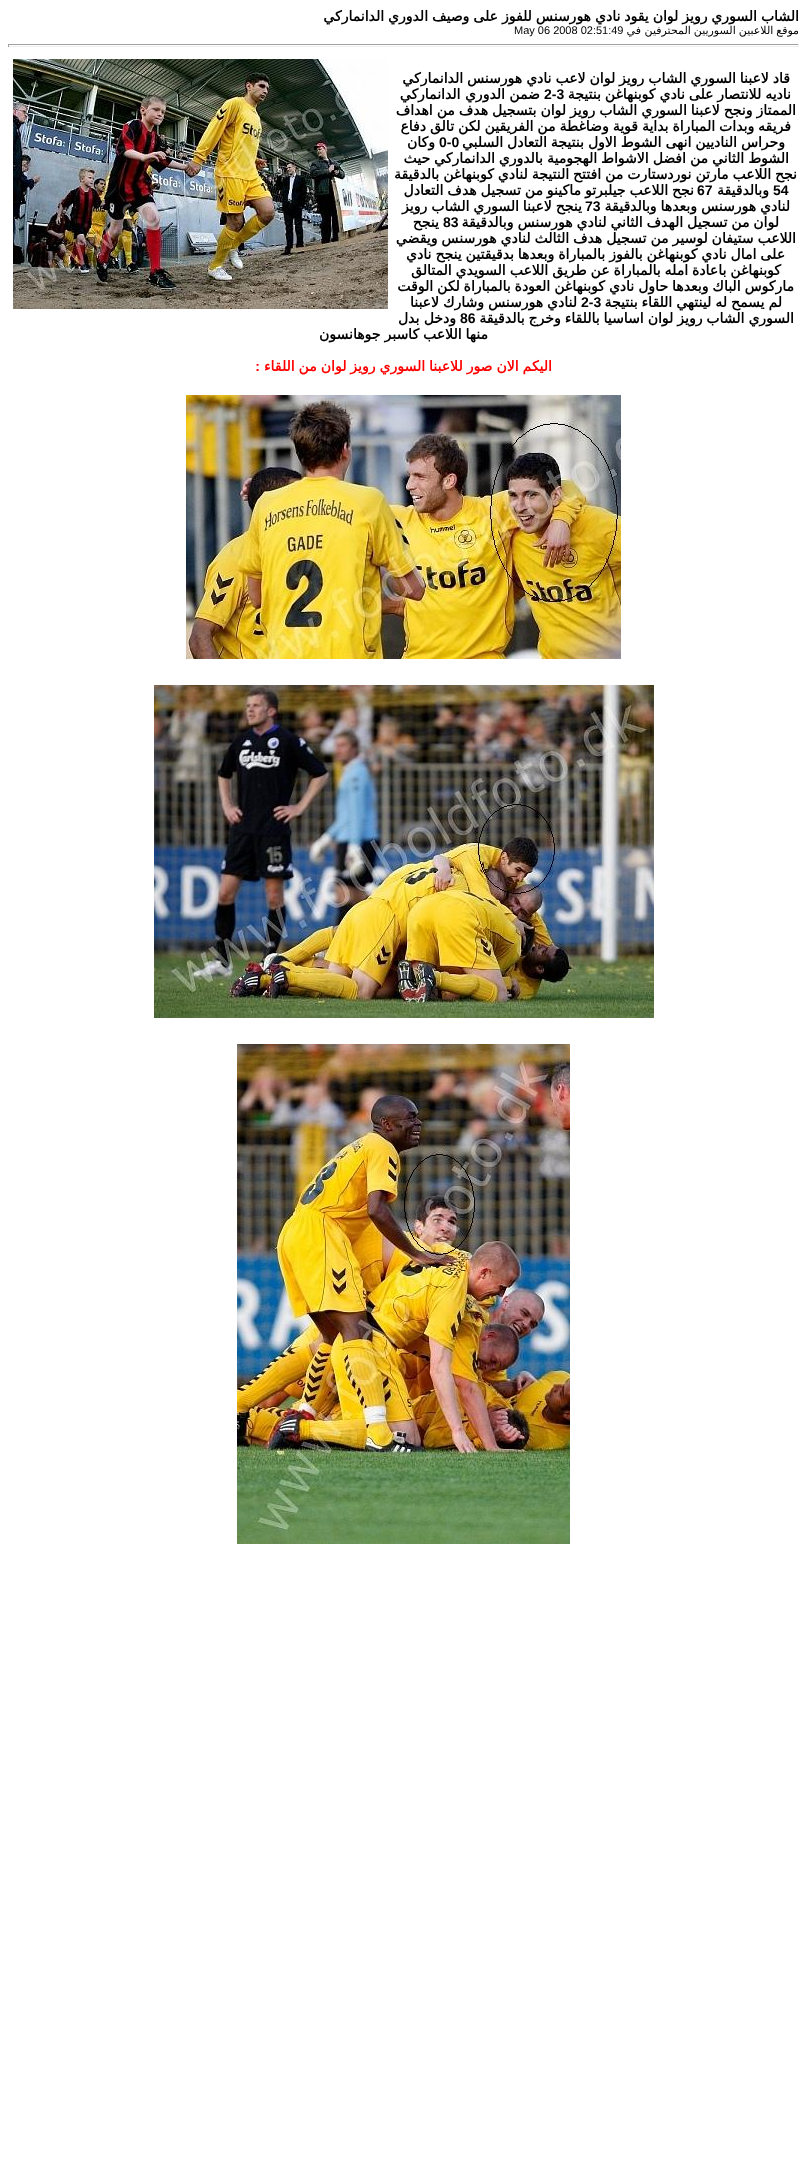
<?xml version="1.0" encoding="UTF-8"?>
<svg xmlns="http://www.w3.org/2000/svg" xmlns:xlink="http://www.w3.org/1999/xlink" width="807" height="2158">
  <rect width="100%" height="100%" fill="#ffffff" />
  <rect x="8" y="44" width="791" height="1" fill="#9f9f9f" />
  <rect x="798" y="44" width="1" height="3" fill="#eeeeee" />
  <rect x="8" y="46" width="791" height="1" fill="#eeeeee" />
  <rect x="8" y="44" width="1" height="3" fill="#9f9f9f" />
  <image x="13" y="59" width="375" height="250" xlink:href="image1.png" />
  <image x="186" y="395" width="435" height="264" xlink:href="image2.png" />
  <image x="154" y="685" width="500" height="333" xlink:href="image3.png" />
  <image x="237" y="1044" width="333" height="500" xlink:href="image4.png" />
  <text x="799" y="21" word-spacing="-0.5" style="font-family: DejaVu Sans; font-size: 14px; font-weight: bold; direction: rtl; fill: #000000">الشاب السوري رويز لوان يقود نادي هورسنس للفوز على وصيف الدوري الدانماركي</text>
  <text x="799" y="34" word-spacing="-0.5" style="font-family: DejaVu Sans; font-size: 11px; direction: rtl; fill: #000000">موقع اللاعبين السوريين المحترفين</text>
  <text x="641" y="34" style="font-family: DejaVu Sans; font-size: 11px; direction: rtl; fill: #000000">في</text>
  <text x="514" y="34" style="font-family: Liberation Sans; font-size: 11px; fill: #000000">May 06 2008 02:51:49</text>
  <text x="790" y="83" word-spacing="-0.5" style="font-family: DejaVu Sans; font-size: 14px; font-weight: bold; direction: rtl; fill: #000000">قاد لاعبنا السوري الشاب رويز لوان لاعب نادي هورسنس الدانماركي</text>
  <text x="791" y="99" word-spacing="-0.5" style="font-family: DejaVu Sans; font-size: 14px; font-weight: bold; direction: rtl; fill: #000000">ناديه للانتصار على نادي كوبنهاغن بنتيجة</text>
  <text x="544" y="99" style="font-family: Liberation Sans; font-size: 14px; font-weight: bold; fill: #000000">2-3</text>
  <text x="540" y="99" style="font-family: DejaVu Sans; font-size: 14px; font-weight: bold; direction: rtl; fill: #000000">ضمن الدوري الدانماركي</text>
  <text x="796" y="115" word-spacing="-0.5" style="font-family: DejaVu Sans; font-size: 14px; font-weight: bold; direction: rtl; fill: #000000">الممتاز ونجح لاعبنا السوري الشاب رويز لوان بتسجيل هدف من اهداف</text>
  <text x="791" y="131" word-spacing="-0.5" style="font-family: DejaVu Sans; font-size: 14px; font-weight: bold; direction: rtl; fill: #000000">فريقه وبدات المباراة بداية قوية وضاغطة من الفريقين لكن تالق دفاع</text>
  <text x="785" y="147" word-spacing="-0.5" style="font-family: DejaVu Sans; font-size: 14px; font-weight: bold; direction: rtl; fill: #000000">وحراس الناديين انهى الشوط الاول بنتيجة التعادل السلبي</text>
  <text x="439" y="147" style="font-family: Liberation Sans; font-size: 14px; font-weight: bold; fill: #000000">0-0</text>
  <text x="435" y="147" style="font-family: DejaVu Sans; font-size: 14px; font-weight: bold; direction: rtl; fill: #000000">وكان</text>
  <text x="789" y="163" word-spacing="-0.5" style="font-family: DejaVu Sans; font-size: 14px; font-weight: bold; direction: rtl; fill: #000000">الشوط الثاني من افضل الاشواط الهجومية بالدوري الدانماركي حيث</text>
  <text x="797" y="179" word-spacing="-0.5" style="font-family: DejaVu Sans; font-size: 14px; font-weight: bold; direction: rtl; fill: #000000">نجح اللاعب مارتن نوردستارت من افتتح النتيجة لنادي كوبنهاغن بالدقيقة</text>
  <text x="773" y="195" style="font-family: Liberation Sans; font-size: 14px; font-weight: bold; fill: #000000">54</text>
  <text x="769" y="195" style="font-family: DejaVu Sans; font-size: 14px; font-weight: bold; direction: rtl; fill: #000000">وبالدقيقة</text>
  <text x="697" y="195" style="font-family: Liberation Sans; font-size: 14px; font-weight: bold; fill: #000000">67</text>
  <text x="694" y="195" word-spacing="-0.5" style="font-family: DejaVu Sans; font-size: 14px; font-weight: bold; direction: rtl; fill: #000000">نجح اللاعب جيلبرتو ماكينو من تسجيل هدف التعادل</text>
  <text x="790" y="211" word-spacing="-0.5" style="font-family: DejaVu Sans; font-size: 14px; font-weight: bold; direction: rtl; fill: #000000">لنادي هورسنس وبعدها وبالدقيقة</text>
  <text x="585" y="211" style="font-family: Liberation Sans; font-size: 14px; font-weight: bold; fill: #000000">73</text>
  <text x="582" y="211" word-spacing="-0.5" style="font-family: DejaVu Sans; font-size: 14px; font-weight: bold; direction: rtl; fill: #000000">ينجح لاعبنا السوري الشاب رويز</text>
  <text x="779" y="227" word-spacing="-0.5" style="font-family: DejaVu Sans; font-size: 14px; font-weight: bold; direction: rtl; fill: #000000">لوان من تسجيل الهدف الثاني لنادي هورسنس وبالدقيقة</text>
  <text x="443" y="227" style="font-family: Liberation Sans; font-size: 14px; font-weight: bold; fill: #000000">83</text>
  <text x="439" y="227" style="font-family: DejaVu Sans; font-size: 14px; font-weight: bold; direction: rtl; fill: #000000">ينجح</text>
  <text x="796" y="243" word-spacing="-0.5" style="font-family: DejaVu Sans; font-size: 14px; font-weight: bold; direction: rtl; fill: #000000">اللاعب ستيفان لوسير من تسجيل هدف الثالث لنادي هورسنس ويقضي</text>
  <text x="785" y="259" word-spacing="-0.5" style="font-family: DejaVu Sans; font-size: 14px; font-weight: bold; direction: rtl; fill: #000000">على امال نادي كوبنهاغن بالفوز بالمباراة وبعدها بدقيقتين ينجح نادي</text>
  <text x="781" y="275" word-spacing="-0.5" style="font-family: DejaVu Sans; font-size: 14px; font-weight: bold; direction: rtl; fill: #000000">كوبنهاغن باعادة امله بالمباراة عن طريق اللاعب السويدي المتالق</text>
  <text x="794" y="291" word-spacing="-0.5" style="font-family: DejaVu Sans; font-size: 14px; font-weight: bold; direction: rtl; fill: #000000">ماركوس الباك وبعدها حاول نادي كوبنهاغن العودة بالمباراة لكن الوقت</text>
  <text x="782" y="307" word-spacing="-0.5" style="font-family: DejaVu Sans; font-size: 14px; font-weight: bold; direction: rtl; fill: #000000">لم يسمح له لينتهي اللقاء بنتيجة</text>
  <text x="581" y="307" style="font-family: Liberation Sans; font-size: 14px; font-weight: bold; fill: #000000">2-3</text>
  <text x="577" y="307" word-spacing="-0.5" style="font-family: DejaVu Sans; font-size: 14px; font-weight: bold; direction: rtl; fill: #000000">لنادي هورسنس وشارك لاعبنا</text>
  <text x="794" y="323" word-spacing="-0.5" style="font-family: DejaVu Sans; font-size: 14px; font-weight: bold; direction: rtl; fill: #000000">السوري الشاب رويز لوان اساسيا باللقاء وخرج بالدقيقة</text>
  <text x="460" y="323" style="font-family: Liberation Sans; font-size: 14px; font-weight: bold; fill: #000000">86</text>
  <text x="456" y="323" style="font-family: DejaVu Sans; font-size: 14px; font-weight: bold; direction: rtl; fill: #000000">ودخل بدل</text>
  <text x="488" y="339" word-spacing="-0.5" style="font-family: DejaVu Sans; font-size: 14px; font-weight: bold; direction: rtl; fill: #000000">منها اللاعب كاسبر جوهانسون</text>
  <text x="552" y="371" word-spacing="-0.5" style="font-family: DejaVu Sans; font-size: 14px; font-weight: bold; direction: rtl; fill: #ff0000">اليكم الان صور للاعبنا السوري رويز لوان من اللقاء</text>
  <text x="260" y="371" style="font-family: Liberation Sans; font-size: 14px; font-weight: bold; direction: rtl; fill: #ff0000">:</text>
</svg>
